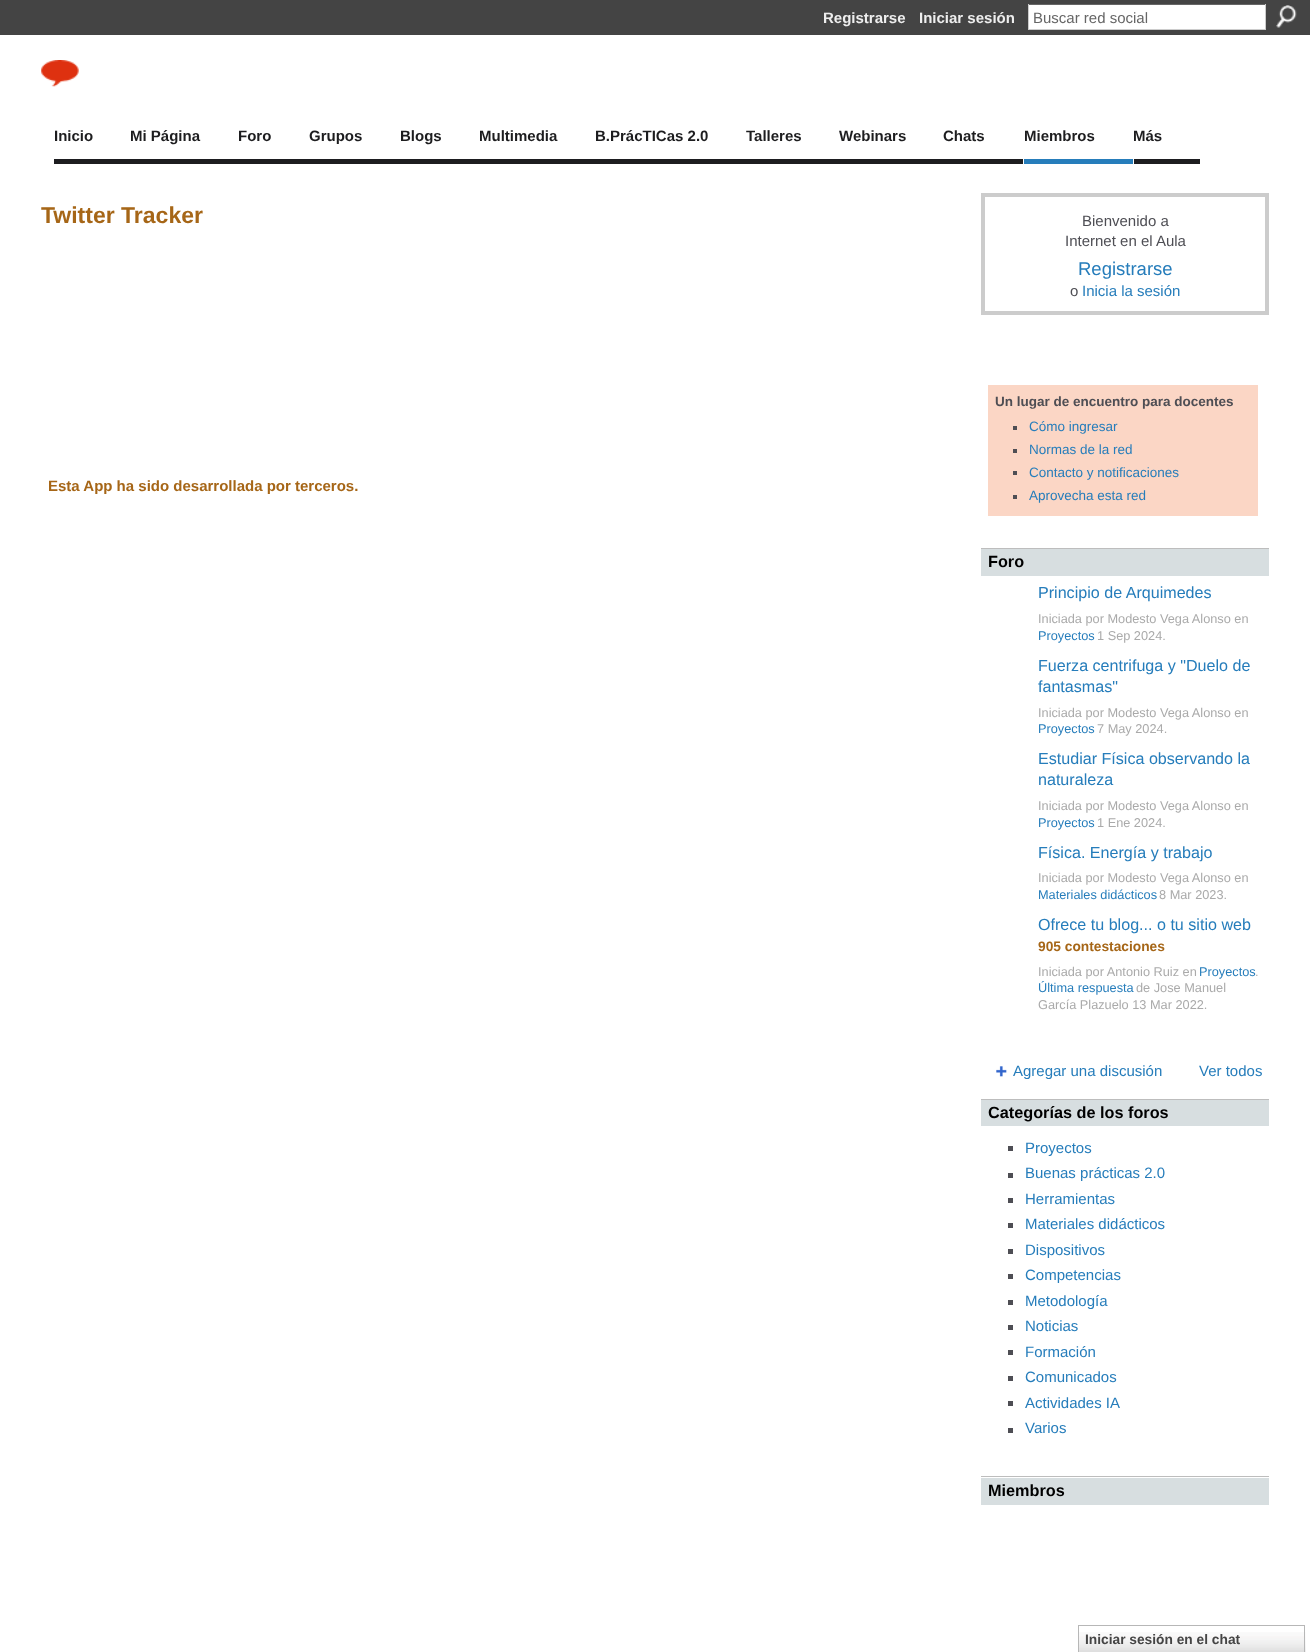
<?xml version="1.0" encoding="UTF-8"?>
<svg xmlns="http://www.w3.org/2000/svg" xmlns:xlink="http://www.w3.org/1999/xlink" width="1310" height="1652">
  <rect width="100%" height="100%" fill="#ffffff" />
  <rect width="1310" height="35" fill="#444444" />
  <rect x="1029" y="5" width="236" height="24" fill="#ffffff" />
  <rect x="1028" y="4" width="238" height="1" fill="#666666" />
  <rect x="1265" y="4" width="1" height="26" fill="#cccccc" />
  <rect x="1028" y="29" width="238" height="1" fill="#cccccc" />
  <rect x="1028" y="4" width="1" height="26" fill="#cccccc" />
  <image x="1276" y="5" width="21" height="23" xlink:href="image1.png" />
  <image x="41" y="60" width="38" height="27" xlink:href="image2.png" />
  <rect x="54" y="159" width="969" height="5" fill="#1d1d20" />
  <rect x="1024" y="159" width="109" height="5" fill="#267dbb" />
  <rect x="1134" y="159" width="66" height="5" fill="#1d1d20" />
  <rect x="983" y="195" width="284" height="118" fill="none" stroke="#cccccc" stroke-width="4" />
  <rect x="988" y="385" width="270" height="131" fill="#fbd6c5" />
  <rect x="1013" y="426" width="4" height="4" fill="#4e4e54" />
  <rect x="1013" y="449" width="4" height="4" fill="#4e4e54" />
  <rect x="1013" y="471" width="4" height="4" fill="#4e4e54" />
  <rect x="1013" y="495" width="4" height="4" fill="#4e4e54" />
  <rect x="981" y="549" width="288" height="27" fill="#d7dee0" />
  <rect x="981" y="548" width="288" height="1" fill="#bdbdbd" />
  <image x="996" y="1066" width="11" height="11" xlink:href="image3.png" />
  <rect x="981" y="1100" width="288" height="26" fill="#d7dee0" />
  <rect x="981" y="1099" width="288" height="1" fill="#bdbdbd" />
  <rect x="1008" y="1146" width="5" height="5" fill="#4e4e54" />
  <rect x="1008" y="1173" width="5" height="5" fill="#4e4e54" />
  <rect x="1008" y="1198" width="5" height="5" fill="#4e4e54" />
  <rect x="1008" y="1223" width="5" height="5" fill="#4e4e54" />
  <rect x="1008" y="1249" width="5" height="5" fill="#4e4e54" />
  <rect x="1008" y="1274" width="5" height="5" fill="#4e4e54" />
  <rect x="1008" y="1300" width="5" height="5" fill="#4e4e54" />
  <rect x="1008" y="1325" width="5" height="5" fill="#4e4e54" />
  <rect x="1008" y="1350" width="5" height="5" fill="#4e4e54" />
  <rect x="1008" y="1376" width="5" height="5" fill="#4e4e54" />
  <rect x="1008" y="1401" width="5" height="5" fill="#4e4e54" />
  <rect x="1008" y="1428" width="5" height="5" fill="#4e4e54" />
  <rect x="981" y="1478" width="288" height="27" fill="#d7dee0" />
  <rect x="981" y="1476" width="288" height="1" fill="#bdbdbd" />
  <image x="1079" y="1632" width="227" height="20" xlink:href="image4.png" />
  <rect x="1078.5" y="1625.5" width="226" height="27" fill="none" stroke="#b7b7b7" />
  <text x="823" y="23" style="font-family: Liberation Sans; font-size: 15px; font-weight: bold; fill: #eeeeee">Registrarse</text>
  <text x="919" y="23" style="font-family: Liberation Sans; font-size: 15px; font-weight: bold; fill: #eeeeee">Iniciar sesión</text>
  <text x="1033" y="23" style="font-family: Liberation Sans; font-size: 15px; fill: #666666">Buscar red social</text>
  <text x="54" y="141" style="font-family: Liberation Sans; font-size: 15px; font-weight: bold; fill: #1d1d1f">Inicio</text>
  <text x="130" y="141" style="font-family: Liberation Sans; font-size: 15px; font-weight: bold; fill: #1d1d1f">Mi Página</text>
  <text x="238" y="141" style="font-family: Liberation Sans; font-size: 15px; font-weight: bold; fill: #1d1d1f">Foro</text>
  <text x="309" y="141" style="font-family: Liberation Sans; font-size: 15px; font-weight: bold; fill: #1d1d1f">Grupos</text>
  <text x="400" y="141" style="font-family: Liberation Sans; font-size: 15px; font-weight: bold; fill: #1d1d1f">Blogs</text>
  <text x="479" y="141" style="font-family: Liberation Sans; font-size: 15px; font-weight: bold; fill: #1d1d1f">Multimedia</text>
  <text x="595" y="141" style="font-family: Liberation Sans; font-size: 15px; font-weight: bold; fill: #1d1d1f">B.PrácTICas 2.0</text>
  <text x="746" y="141" style="font-family: Liberation Sans; font-size: 15px; font-weight: bold; fill: #1d1d1f">Talleres</text>
  <text x="839" y="141" style="font-family: Liberation Sans; font-size: 15px; font-weight: bold; fill: #1d1d1f">Webinars</text>
  <text x="943" y="141" style="font-family: Liberation Sans; font-size: 15px; font-weight: bold; fill: #1d1d1f">Chats</text>
  <text x="1024" y="141" style="font-family: Liberation Sans; font-size: 15px; font-weight: bold; fill: #1d1d1f">Miembros</text>
  <text x="1133" y="141" style="font-family: Liberation Sans; font-size: 15px; font-weight: bold; fill: #1d1d1f">Más</text>
  <text x="41" y="223" style="font-family: Liberation Sans; font-size: 23px; font-weight: bold; fill: #a66617">Twitter Tracker</text>
  <text x="48" y="491" style="font-family: Liberation Sans; font-size: 15px; font-weight: bold; fill: #a66617">Esta App ha sido desarrollada por terceros.</text>
  <text x="1082" y="226" style="font-family: Liberation Sans; font-size: 15px; fill: #4e4e54">Bienvenido a</text>
  <text x="1065" y="246" style="font-family: Liberation Sans; font-size: 15px; fill: #4e4e54">Internet en el Aula</text>
  <text x="1078" y="275" style="font-family: Liberation Sans; font-size: 18.5px; fill: #267dbb">Registrarse</text>
  <text x="1070" y="296" style="font-family: Liberation Sans; font-size: 15px; fill: #4e4e54">o</text>
  <text x="1082" y="296" style="font-family: Liberation Sans; font-size: 15px; fill: #267dbb">Inicia la sesión</text>
  <text x="995" y="406" style="font-family: Liberation Sans; font-size: 13.5px; font-weight: bold; fill: #4e4e54">Un lugar de encuentro para docentes</text>
  <text x="1029" y="431" style="font-family: Liberation Sans; font-size: 13.5px; fill: #267dbb">Cómo ingresar</text>
  <text x="1029" y="454" style="font-family: Liberation Sans; font-size: 13.5px; fill: #267dbb">Normas de la red</text>
  <text x="1029" y="477" style="font-family: Liberation Sans; font-size: 13.5px; fill: #267dbb">Contacto y notificaciones</text>
  <text x="1029" y="500" style="font-family: Liberation Sans; font-size: 13.5px; fill: #267dbb">Aprovecha esta red</text>
  <text x="988" y="567" style="font-family: Liberation Sans; font-size: 16.25px; font-weight: bold; fill: #000000">Foro</text>
  <text x="1038" y="598" style="font-family: Liberation Sans; font-size: 16.1px; fill: #267dbb">Principio de Arquimedes</text>
  <text x="1038" y="623" style="font-family: Liberation Sans; font-size: 12.75px; fill: #aaaaaa">Iniciada por Modesto Vega Alonso en</text>
  <text x="1038" y="640" style="font-family: Liberation Sans; font-size: 12.75px; fill: #267dbb">Proyectos</text>
  <text x="1097" y="640" style="font-family: Liberation Sans; font-size: 12.75px; fill: #aaaaaa">1 Sep 2024.</text>
  <text x="1038" y="671" style="font-family: Liberation Sans; font-size: 16.1px; fill: #267dbb">Fuerza centrifuga y "Duelo de</text>
  <text x="1038" y="692" style="font-family: Liberation Sans; font-size: 16.1px; fill: #267dbb">fantasmas"</text>
  <text x="1038" y="717" style="font-family: Liberation Sans; font-size: 12.75px; fill: #aaaaaa">Iniciada por Modesto Vega Alonso en</text>
  <text x="1038" y="733" style="font-family: Liberation Sans; font-size: 12.75px; fill: #267dbb">Proyectos</text>
  <text x="1097" y="733" style="font-family: Liberation Sans; font-size: 12.75px; fill: #aaaaaa">7 May 2024.</text>
  <text x="1038" y="764" style="font-family: Liberation Sans; font-size: 16.1px; fill: #267dbb">Estudiar Física observando la</text>
  <text x="1038" y="785" style="font-family: Liberation Sans; font-size: 16.1px; fill: #267dbb">naturaleza</text>
  <text x="1038" y="810" style="font-family: Liberation Sans; font-size: 12.75px; fill: #aaaaaa">Iniciada por Modesto Vega Alonso en</text>
  <text x="1038" y="827" style="font-family: Liberation Sans; font-size: 12.75px; fill: #267dbb">Proyectos</text>
  <text x="1097" y="827" style="font-family: Liberation Sans; font-size: 12.75px; fill: #aaaaaa">1 Ene 2024.</text>
  <text x="1038" y="858" style="font-family: Liberation Sans; font-size: 16.1px; fill: #267dbb">Física. Energía y trabajo</text>
  <text x="1038" y="882" style="font-family: Liberation Sans; font-size: 12.75px; fill: #aaaaaa">Iniciada por Modesto Vega Alonso en</text>
  <text x="1038" y="899" style="font-family: Liberation Sans; font-size: 12.75px; fill: #267dbb">Materiales didácticos</text>
  <text x="1159" y="899" style="font-family: Liberation Sans; font-size: 12.75px; fill: #aaaaaa">8 Mar 2023.</text>
  <text x="1038" y="930" style="font-family: Liberation Sans; font-size: 16.1px; fill: #267dbb">Ofrece tu blog... o tu sitio web</text>
  <text x="1038" y="951" style="font-family: Liberation Sans; font-size: 13.75px; font-weight: bold; fill: #a66617">905 contestaciones</text>
  <text x="1038" y="976" style="font-family: Liberation Sans; font-size: 12.75px; fill: #aaaaaa">Iniciada por Antonio Ruiz en</text>
  <text x="1199" y="976" style="font-family: Liberation Sans; font-size: 12.75px; fill: #267dbb">Proyectos</text>
  <text x="1255" y="976" style="font-family: Liberation Sans; font-size: 12.75px; fill: #aaaaaa">.</text>
  <text x="1038" y="992" style="font-family: Liberation Sans; font-size: 12.75px; fill: #267dbb">Última respuesta</text>
  <text x="1136" y="992" style="font-family: Liberation Sans; font-size: 12.75px; fill: #aaaaaa">de Jose Manuel</text>
  <text x="1038" y="1009" style="font-family: Liberation Sans; font-size: 12.75px; fill: #aaaaaa">García Plazuelo 13 Mar 2022.</text>
  <text x="1013" y="1076" style="font-family: Liberation Sans; font-size: 15px; fill: #267dbb">Agregar una discusión</text>
  <text x="1199" y="1076" style="font-family: Liberation Sans; font-size: 15px; fill: #267dbb">Ver todos</text>
  <text x="988" y="1118" style="font-family: Liberation Sans; font-size: 16.25px; font-weight: bold; fill: #000000">Categorías de los foros</text>
  <text x="1025" y="1153" style="font-family: Liberation Sans; font-size: 15px; fill: #267dbb">Proyectos</text>
  <text x="1025" y="1178" style="font-family: Liberation Sans; font-size: 15px; fill: #267dbb">Buenas prácticas 2.0</text>
  <text x="1025" y="1204" style="font-family: Liberation Sans; font-size: 15px; fill: #267dbb">Herramientas</text>
  <text x="1025" y="1229" style="font-family: Liberation Sans; font-size: 15px; fill: #267dbb">Materiales didácticos</text>
  <text x="1025" y="1255" style="font-family: Liberation Sans; font-size: 15px; fill: #267dbb">Dispositivos</text>
  <text x="1025" y="1280" style="font-family: Liberation Sans; font-size: 15px; fill: #267dbb">Competencias</text>
  <text x="1025" y="1306" style="font-family: Liberation Sans; font-size: 15px; fill: #267dbb">Metodología</text>
  <text x="1025" y="1331" style="font-family: Liberation Sans; font-size: 15px; fill: #267dbb">Noticias</text>
  <text x="1025" y="1357" style="font-family: Liberation Sans; font-size: 15px; fill: #267dbb">Formación</text>
  <text x="1025" y="1382" style="font-family: Liberation Sans; font-size: 15px; fill: #267dbb">Comunicados</text>
  <text x="1025" y="1408" style="font-family: Liberation Sans; font-size: 15px; fill: #267dbb">Actividades IA</text>
  <text x="1025" y="1433" style="font-family: Liberation Sans; font-size: 15px; fill: #267dbb">Varios</text>
  <text x="988" y="1496" style="font-family: Liberation Sans; font-size: 16.25px; font-weight: bold; fill: #000000">Miembros</text>
  <text x="1085" y="1644" style="font-family: Liberation Sans; font-size: 13.75px; font-weight: bold; fill: #454545">Iniciar sesión en el chat</text>
</svg>
